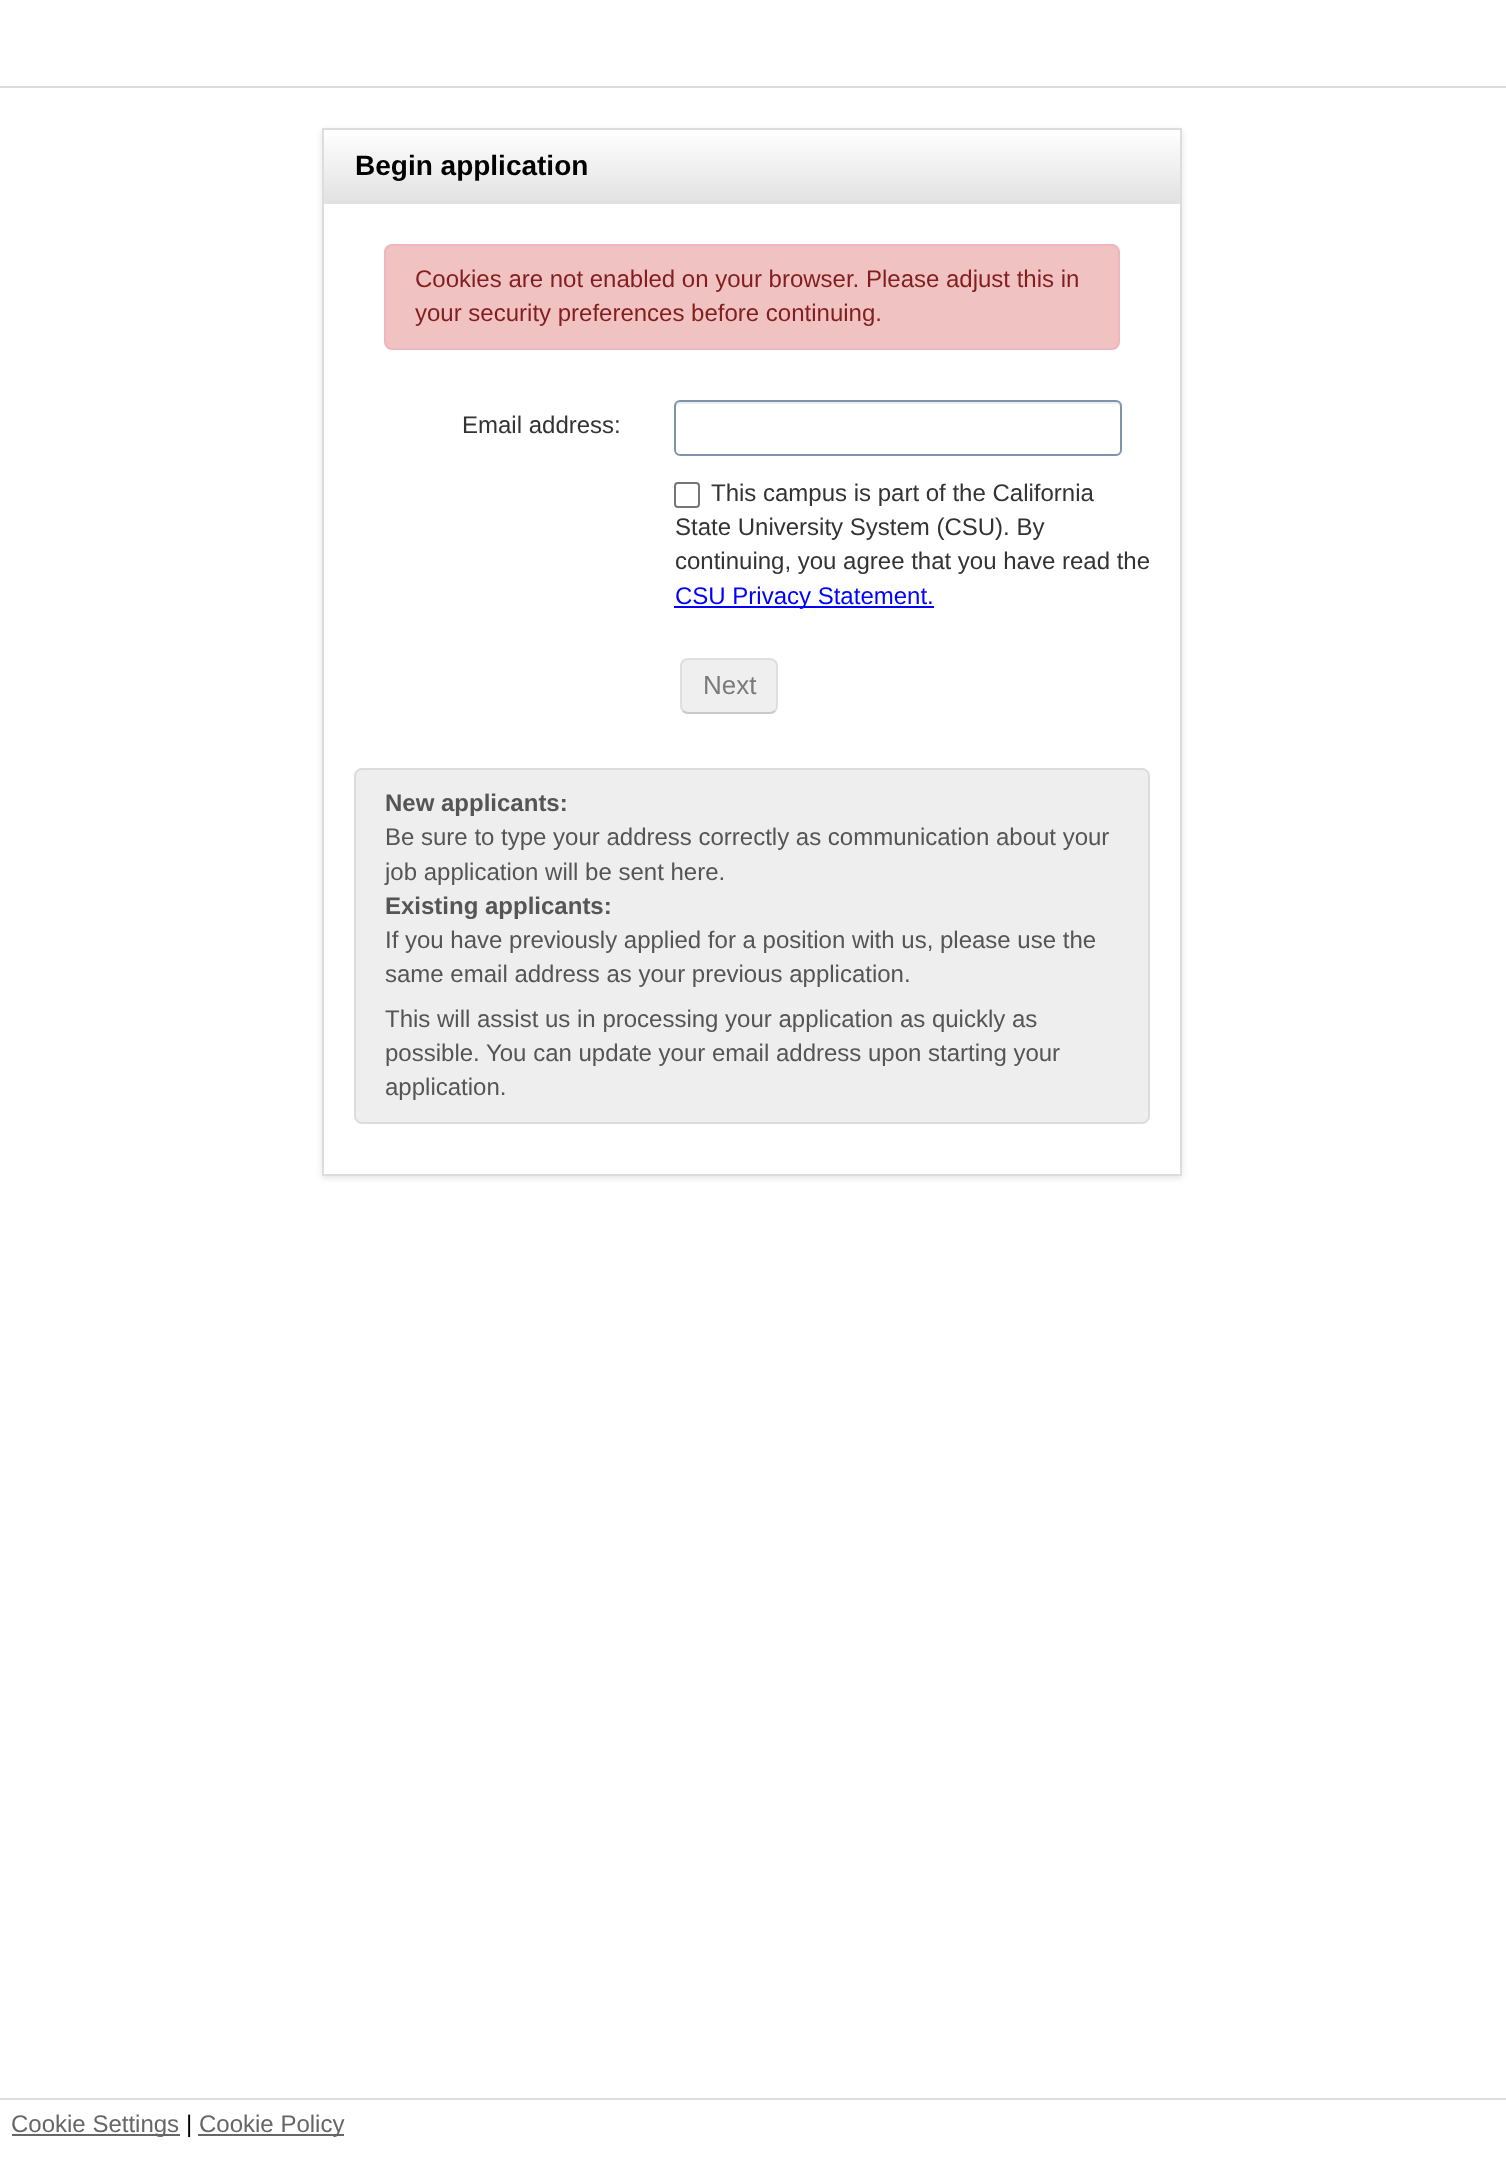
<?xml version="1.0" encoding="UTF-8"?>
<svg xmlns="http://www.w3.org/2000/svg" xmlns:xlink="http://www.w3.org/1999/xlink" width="1506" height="2177">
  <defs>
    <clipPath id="clip1"><path d="M 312 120 h 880 v 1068 h -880 z m 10 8 h 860 v 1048 h -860 z" clip-rule="evenodd" /></clipPath>
    <linearGradient id="g1" gradientUnits="userSpaceOnUse" x1="752" y1="130" x2="752" y2="204"><stop offset="0" stop-color="#ffffff" /><stop offset="1" stop-color="#e1e1e1" /></linearGradient>
  </defs>
  <rect width="100%" height="100%" fill="#ffffff" />
  <rect y="86" width="1506" height="2" fill="#dddddd" />
  <g clip-path="url(#clip1)">
    <rect x="322" y="130" width="860" height="1048" fill="#000000" fill-opacity="0.11" filter="blur(3px)" />
  </g>
  <rect x="323" y="129" width="858" height="1046" fill="none" stroke="#dddddd" stroke-width="2" />
  <rect x="324" y="136" width="856" height="68" fill="url(#g1)" />
  <rect x="385" y="245" width="734" height="104" rx="7" fill="#f1c2c2" stroke="#eeb6bf" stroke-width="2" />
  <path d="M 680 404 h 436 c 2 0 4 2 4 4 v -2 c 0 -2 -2 -4 -4 -4 h -436 c -2 0 -4 2 -4 4 v 2 c 0 -2 2 -4 4 -4 z" fill="#ececec" />
  <rect x="675" y="401" width="446" height="54" rx="5" fill="none" stroke="#7d94ab" stroke-width="2" />
  <rect x="675" y="483" width="24" height="24" rx="3" fill="none" stroke="#767676" stroke-width="2" />
  <rect x="674" y="606" width="260" height="2" fill="#0000ff" />
  <rect x="680" y="658" width="98" height="56" rx="8" fill="#efefef" />
  <path d="M 775 711 c -1.5 1.5 -3 2 -5 2 h -82 c -2 0 -3.5 -0.5 -5 -2" fill="none" stroke="#595959" stroke-opacity="0.25" stroke-width="2" />
  <path d="M 683 711 c -1.5 -1.5 -2 -3 -2 -5 v -40 c 0 -2 0.5 -3.5 2 -5 c 1.5 -1.5 3 -2 5 -2 h 82 c 2 0 3.5 0.5 5 2 c 1.5 1.5 2 3 2 5 v 40 c 0 2 -0.5 3.5 -2 5" fill="none" stroke="#595959" stroke-opacity="0.1" stroke-width="2" />
  <rect x="355" y="769" width="794" height="354" rx="7" fill="#eeeeee" stroke="#dcdcdc" stroke-width="2" />
  <rect y="2098" width="1506" height="2" fill="#dddddd" />
  <rect x="12" y="2134" width="168" height="2" fill="#666666" />
  <rect x="198" y="2134" width="146" height="2" fill="#666666" />
  <text x="355" y="175" style="font-family: Liberation Sans; font-size: 28px; font-weight: bold; fill: #000000">Begin application</text>
  <text x="415" y="287" style="font-family: Liberation Sans; font-size: 24px; fill: #821e1e">Cookies are not enabled on your browser. Please adjust this in</text>
  <text x="415" y="321" style="font-family: Liberation Sans; font-size: 24px; fill: #821e1e">your security preferences before continuing.</text>
  <text x="462" y="433" style="font-family: Liberation Sans; font-size: 24px; fill: #333333">Email address:</text>
  <text x="711" y="501" style="font-family: Liberation Sans; font-size: 24px; fill: #333333">This campus is part of the California</text>
  <text x="675" y="535" style="font-family: Liberation Sans; font-size: 24px; fill: #333333">State University System (CSU). By</text>
  <text x="675" y="569" style="font-family: Liberation Sans; font-size: 24px; fill: #333333">continuing, you agree that you have read the</text>
  <text x="675" y="604" style="font-family: Liberation Sans; font-size: 24px; fill: #0000ff">CSU Privacy Statement.</text>
  <text x="703" y="694" style="font-family: Liberation Sans; font-size: 26px; fill: #7a7a7a">Next</text>
  <text x="385" y="811" style="font-family: Liberation Sans; font-size: 24px; font-weight: bold; fill: #555555">New applicants:</text>
  <text x="385" y="845" style="font-family: Liberation Sans; font-size: 24px; fill: #555555">Be sure to type your address correctly as communication about your</text>
  <text x="385" y="880" style="font-family: Liberation Sans; font-size: 24px; fill: #555555">job application will be sent here.</text>
  <text x="385" y="914" style="font-family: Liberation Sans; font-size: 24px; font-weight: bold; fill: #555555">Existing applicants:</text>
  <text x="385" y="948" style="font-family: Liberation Sans; font-size: 24px; fill: #555555">If you have previously applied for a position with us, please use the</text>
  <text x="385" y="982" style="font-family: Liberation Sans; font-size: 24px; fill: #555555">same email address as your previous application.</text>
  <text x="385" y="1027" style="font-family: Liberation Sans; font-size: 24px; fill: #555555">This will assist us in processing your application as quickly as</text>
  <text x="385" y="1061" style="font-family: Liberation Sans; font-size: 24px; fill: #555555">possible. You can update your email address upon starting your</text>
  <text x="385" y="1095" style="font-family: Liberation Sans; font-size: 24px; fill: #555555">application.</text>
  <text x="11" y="2132" style="font-family: Liberation Sans; font-size: 24px; fill: #666666">Cookie Settings</text>
  <text x="186" y="2132" style="font-family: Liberation Sans; font-size: 24px; fill: #000000">|</text>
  <text x="199" y="2132" style="font-family: Liberation Sans; font-size: 24px; fill: #666666">Cookie Policy</text>
</svg>
